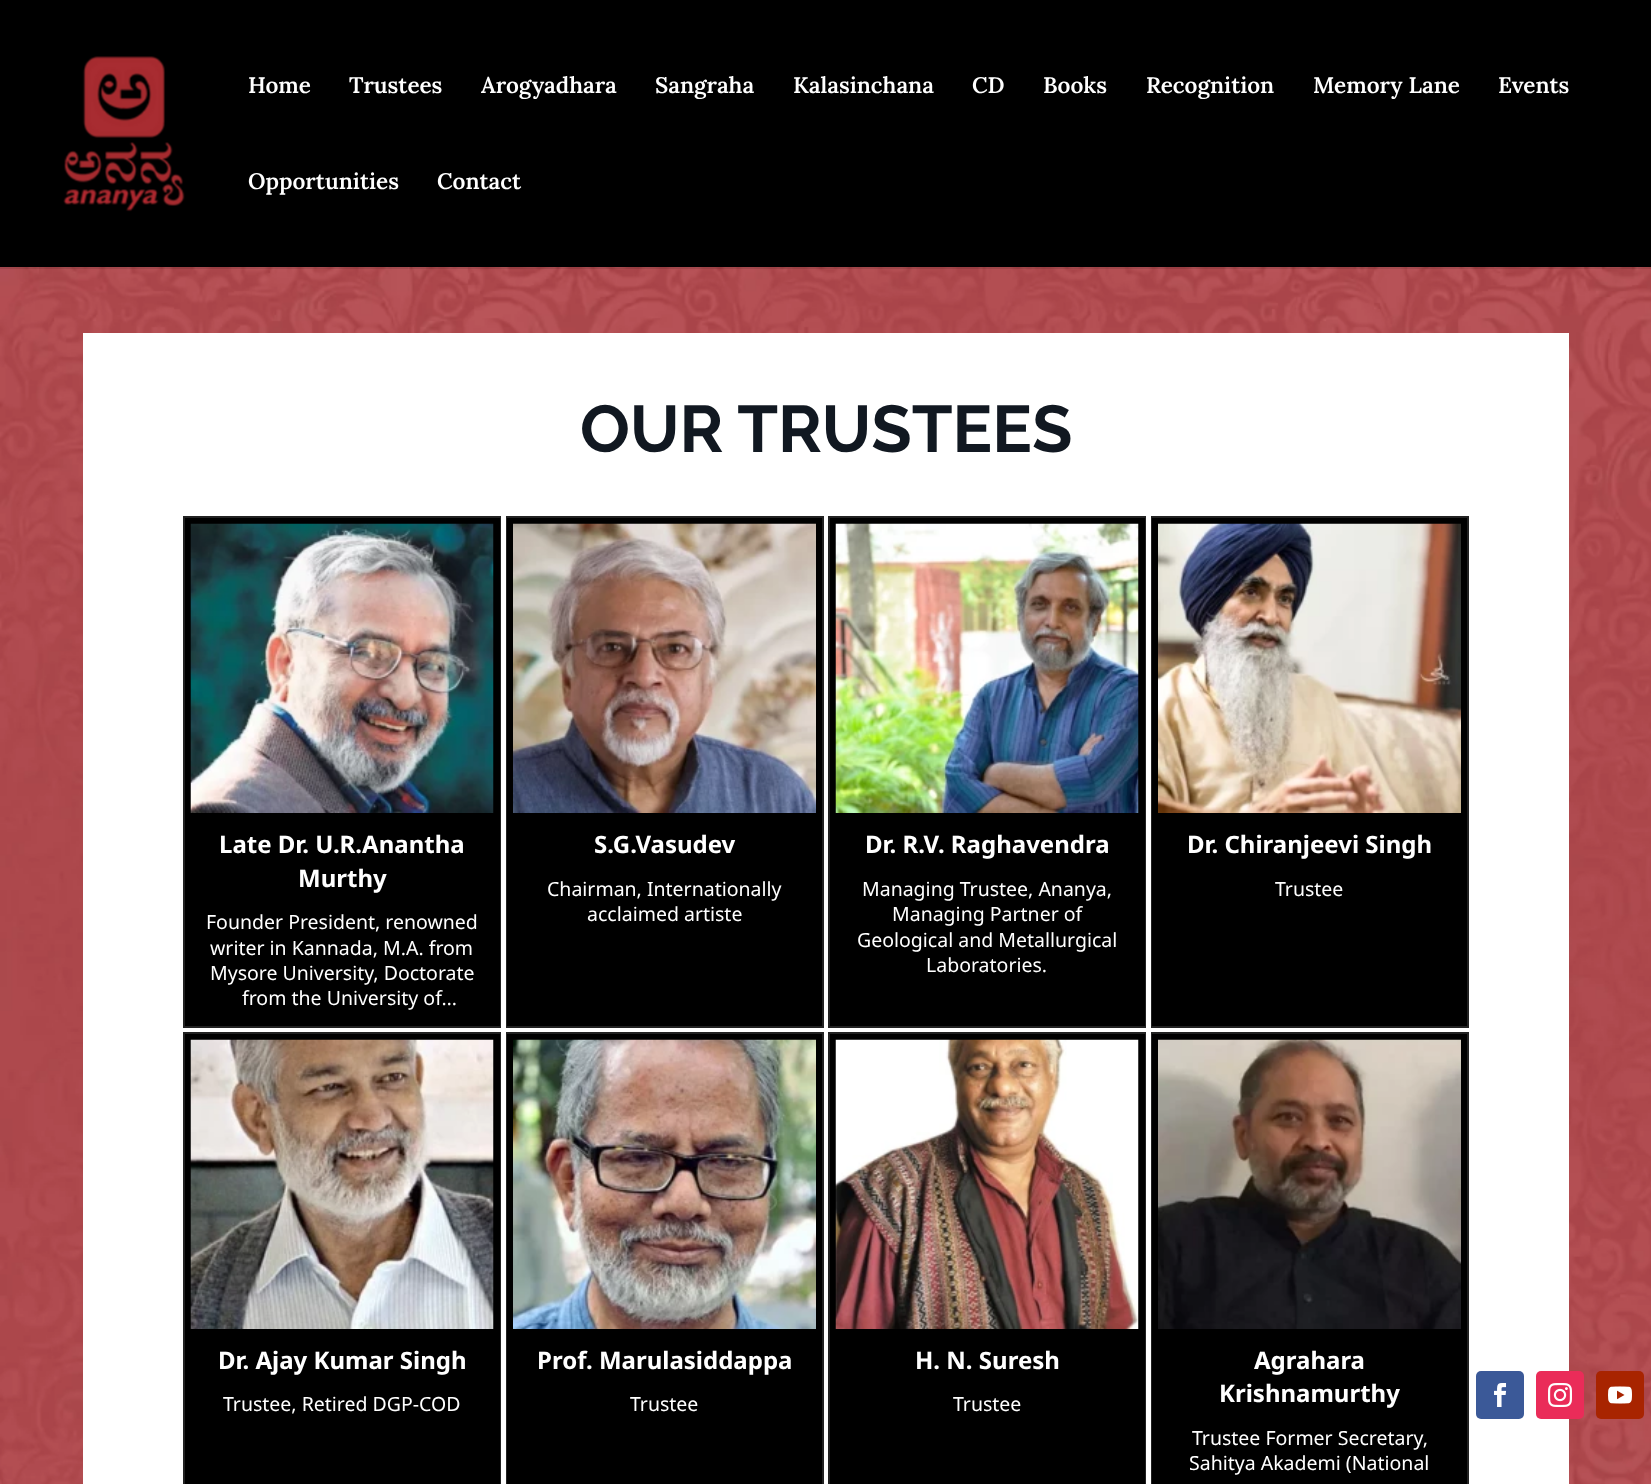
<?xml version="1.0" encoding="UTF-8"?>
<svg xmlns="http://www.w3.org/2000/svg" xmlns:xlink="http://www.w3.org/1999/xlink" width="1651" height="1484">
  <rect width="100%" height="100%" fill="#ffffff" />
  <image x="0" y="267" width="1651" height="1217" xlink:href="image2.png" />
  <path d="M 0 267 v 2 h 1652 v -267 v 265 z" fill="#000000" fill-opacity="0.1" />
  <rect width="1651" height="267" fill="#000000" />
  <image x="63" y="56" width="122" height="156" xlink:href="image1.png" />
  <rect x="83" y="333" width="1486" height="1151" fill="#ffffff" />
  <rect x="184" y="517" width="316" height="510" fill="none" stroke="#222222" stroke-width="2" />
  <rect x="185" y="518" width="315" height="508" fill="#000000" />
  <image x="190" y="523" width="304" height="290" xlink:href="image3.png" />
  <rect x="507" y="517" width="316" height="510" fill="none" stroke="#222222" stroke-width="2" />
  <rect x="507" y="518" width="315" height="508" fill="#000000" />
  <image x="513" y="523" width="303" height="290" xlink:href="image4.png" />
  <rect x="829" y="517" width="316" height="510" fill="none" stroke="#222222" stroke-width="2" />
  <rect x="830" y="518" width="315" height="508" fill="#000000" />
  <image x="835" y="523" width="304" height="290" xlink:href="image5.png" />
  <rect x="1152" y="517" width="316" height="510" fill="none" stroke="#222222" stroke-width="2" />
  <rect x="1152" y="518" width="315" height="508" fill="#000000" />
  <image x="1158" y="523" width="303" height="290" xlink:href="image6.png" />
  <rect x="184" y="1033" width="316" height="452" fill="none" stroke="#222222" stroke-width="2" />
  <rect x="185" y="1034" width="315" height="450" fill="#000000" />
  <image x="190" y="1039" width="304" height="290" xlink:href="image7.png" />
  <rect x="507" y="1033" width="316" height="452" fill="none" stroke="#222222" stroke-width="2" />
  <rect x="507" y="1034" width="315" height="450" fill="#000000" />
  <image x="513" y="1039" width="303" height="290" xlink:href="image8.png" />
  <rect x="829" y="1033" width="316" height="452" fill="none" stroke="#222222" stroke-width="2" />
  <rect x="830" y="1034" width="315" height="450" fill="#000000" />
  <image x="835" y="1039" width="304" height="290" xlink:href="image9.png" />
  <rect x="1152" y="1033" width="316" height="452" fill="none" stroke="#222222" stroke-width="2" />
  <rect x="1152" y="1034" width="315" height="450" fill="#000000" />
  <image x="1158" y="1039" width="303" height="290" xlink:href="image10.png" />
  <rect x="1476" y="1371" width="48" height="48" rx="5" fill="#3b5998" />
  <image x="1494" y="1383" width="13" height="24" xlink:href="image11.png" />
  <rect x="1536" y="1371" width="48" height="48" rx="5" fill="#ea2c59" />
  <image x="1548" y="1383" width="24" height="24" xlink:href="image12.png" />
  <rect x="1596" y="1371" width="48" height="48" rx="5" fill="#a82400" />
  <image x="1608" y="1386" width="24" height="18" xlink:href="image13.png" />
  <text x="248" y="93" style="font-family: Lora; font-size: 22.5px; font-weight: 600; fill: #ffffff">Home</text>
  <text x="349" y="93" style="font-family: Lora; font-size: 22.5px; font-weight: 600; fill: #ffffff">Trustees</text>
  <text x="481" y="93" style="font-family: Lora; font-size: 22.5px; font-weight: 600; fill: #ffffff">Arogyadhara</text>
  <text x="655" y="93" style="font-family: Lora; font-size: 22.5px; font-weight: 600; fill: #ffffff">Sangraha</text>
  <text x="793" y="93" style="font-family: Lora; font-size: 22.5px; font-weight: 600; fill: #ffffff">Kalasinchana</text>
  <text x="972" y="93" style="font-family: Lora; font-size: 22.5px; font-weight: 600; fill: #ffffff">CD</text>
  <text x="1043" y="93" style="font-family: Lora; font-size: 22.5px; font-weight: 600; fill: #ffffff">Books</text>
  <text x="1146" y="93" style="font-family: Lora; font-size: 22.5px; font-weight: 600; fill: #ffffff">Recognition</text>
  <text x="1313" y="93" style="font-family: Lora; font-size: 22.5px; font-weight: 600; fill: #ffffff">Memory Lane</text>
  <text x="1498" y="93" style="font-family: Lora; font-size: 22.5px; font-weight: 600; fill: #ffffff">Events</text>
  <text x="248" y="189" style="font-family: Lora; font-size: 22.5px; font-weight: 600; fill: #ffffff">Opportunities</text>
  <text x="437" y="189" style="font-family: Lora; font-size: 22.5px; font-weight: 600; fill: #ffffff">Contact</text>
  <text x="580" y="452" style="font-family: Raleway; font-size: 66px; font-weight: 100; fill: #111821">OUR TRUSTEES</text>
  <text x="219" y="853" style="font-family: Noto Sans; font-size: 24px; font-weight: bold; fill: #ffffff">Late Dr. U.R.Anantha</text>
  <text x="298" y="887" style="font-family: Noto Sans; font-size: 24px; font-weight: bold; fill: #ffffff">Murthy</text>
  <text x="206" y="929" style="font-family: Noto Sans; font-size: 19.5px; fill: #ffffff">Founder President, renowned</text>
  <text x="210" y="955" style="font-family: Noto Sans; font-size: 19.5px; fill: #ffffff">writer in Kannada, M.A. from</text>
  <text x="210" y="980" style="font-family: Noto Sans; font-size: 19.5px; fill: #ffffff">Mysore University, Doctorate</text>
  <text x="242" y="1005" style="font-family: Noto Sans; font-size: 19.5px; fill: #ffffff">from the University of…</text>
  <text x="594" y="853" style="font-family: Noto Sans; font-size: 24px; font-weight: bold; fill: #ffffff">S.G.Vasudev</text>
  <text x="547" y="896" style="font-family: Noto Sans; font-size: 19.5px; fill: #ffffff">Chairman, Internationally</text>
  <text x="587" y="921" style="font-family: Noto Sans; font-size: 19.5px; fill: #ffffff">acclaimed artiste</text>
  <text x="865" y="853" style="font-family: Noto Sans; font-size: 24px; font-weight: bold; fill: #ffffff">Dr. R.V. Raghavendra</text>
  <text x="862" y="896" style="font-family: Noto Sans; font-size: 19.5px; fill: #ffffff">Managing Trustee, Ananya,</text>
  <text x="892" y="921" style="font-family: Noto Sans; font-size: 19.5px; fill: #ffffff">Managing Partner of</text>
  <text x="857" y="947" style="font-family: Noto Sans; font-size: 19.5px; fill: #ffffff">Geological and Metallurgical</text>
  <text x="926" y="972" style="font-family: Noto Sans; font-size: 19.5px; fill: #ffffff">Laboratories.</text>
  <text x="1187" y="853" style="font-family: Noto Sans; font-size: 24px; font-weight: bold; fill: #ffffff">Dr. Chiranjeevi Singh</text>
  <text x="1275" y="896" style="font-family: Noto Sans; font-size: 19.5px; fill: #ffffff">Trustee</text>
  <text x="218" y="1369" style="font-family: Noto Sans; font-size: 24px; font-weight: bold; fill: #ffffff">Dr. Ajay Kumar Singh</text>
  <text x="223" y="1411" style="font-family: Noto Sans; font-size: 19.5px; fill: #ffffff">Trustee, Retired DGP-COD</text>
  <text x="537" y="1369" style="font-family: Noto Sans; font-size: 24px; font-weight: bold; fill: #ffffff">Prof. Marulasiddappa</text>
  <text x="630" y="1411" style="font-family: Noto Sans; font-size: 19.5px; fill: #ffffff">Trustee</text>
  <text x="915" y="1369" style="font-family: Noto Sans; font-size: 24px; font-weight: bold; fill: #ffffff">H. N. Suresh</text>
  <text x="953" y="1411" style="font-family: Noto Sans; font-size: 19.5px; fill: #ffffff">Trustee</text>
  <text x="1254" y="1369" style="font-family: Noto Sans; font-size: 24px; font-weight: bold; fill: #ffffff">Agrahara</text>
  <text x="1219" y="1402" style="font-family: Noto Sans; font-size: 24px; font-weight: bold; fill: #ffffff">Krishnamurthy</text>
  <text x="1192" y="1445" style="font-family: Noto Sans; font-size: 19.5px; fill: #ffffff">Trustee Former Secretary,</text>
  <text x="1189" y="1470" style="font-family: Noto Sans; font-size: 19.5px; fill: #ffffff">Sahitya Akademi (National</text>
</svg>
